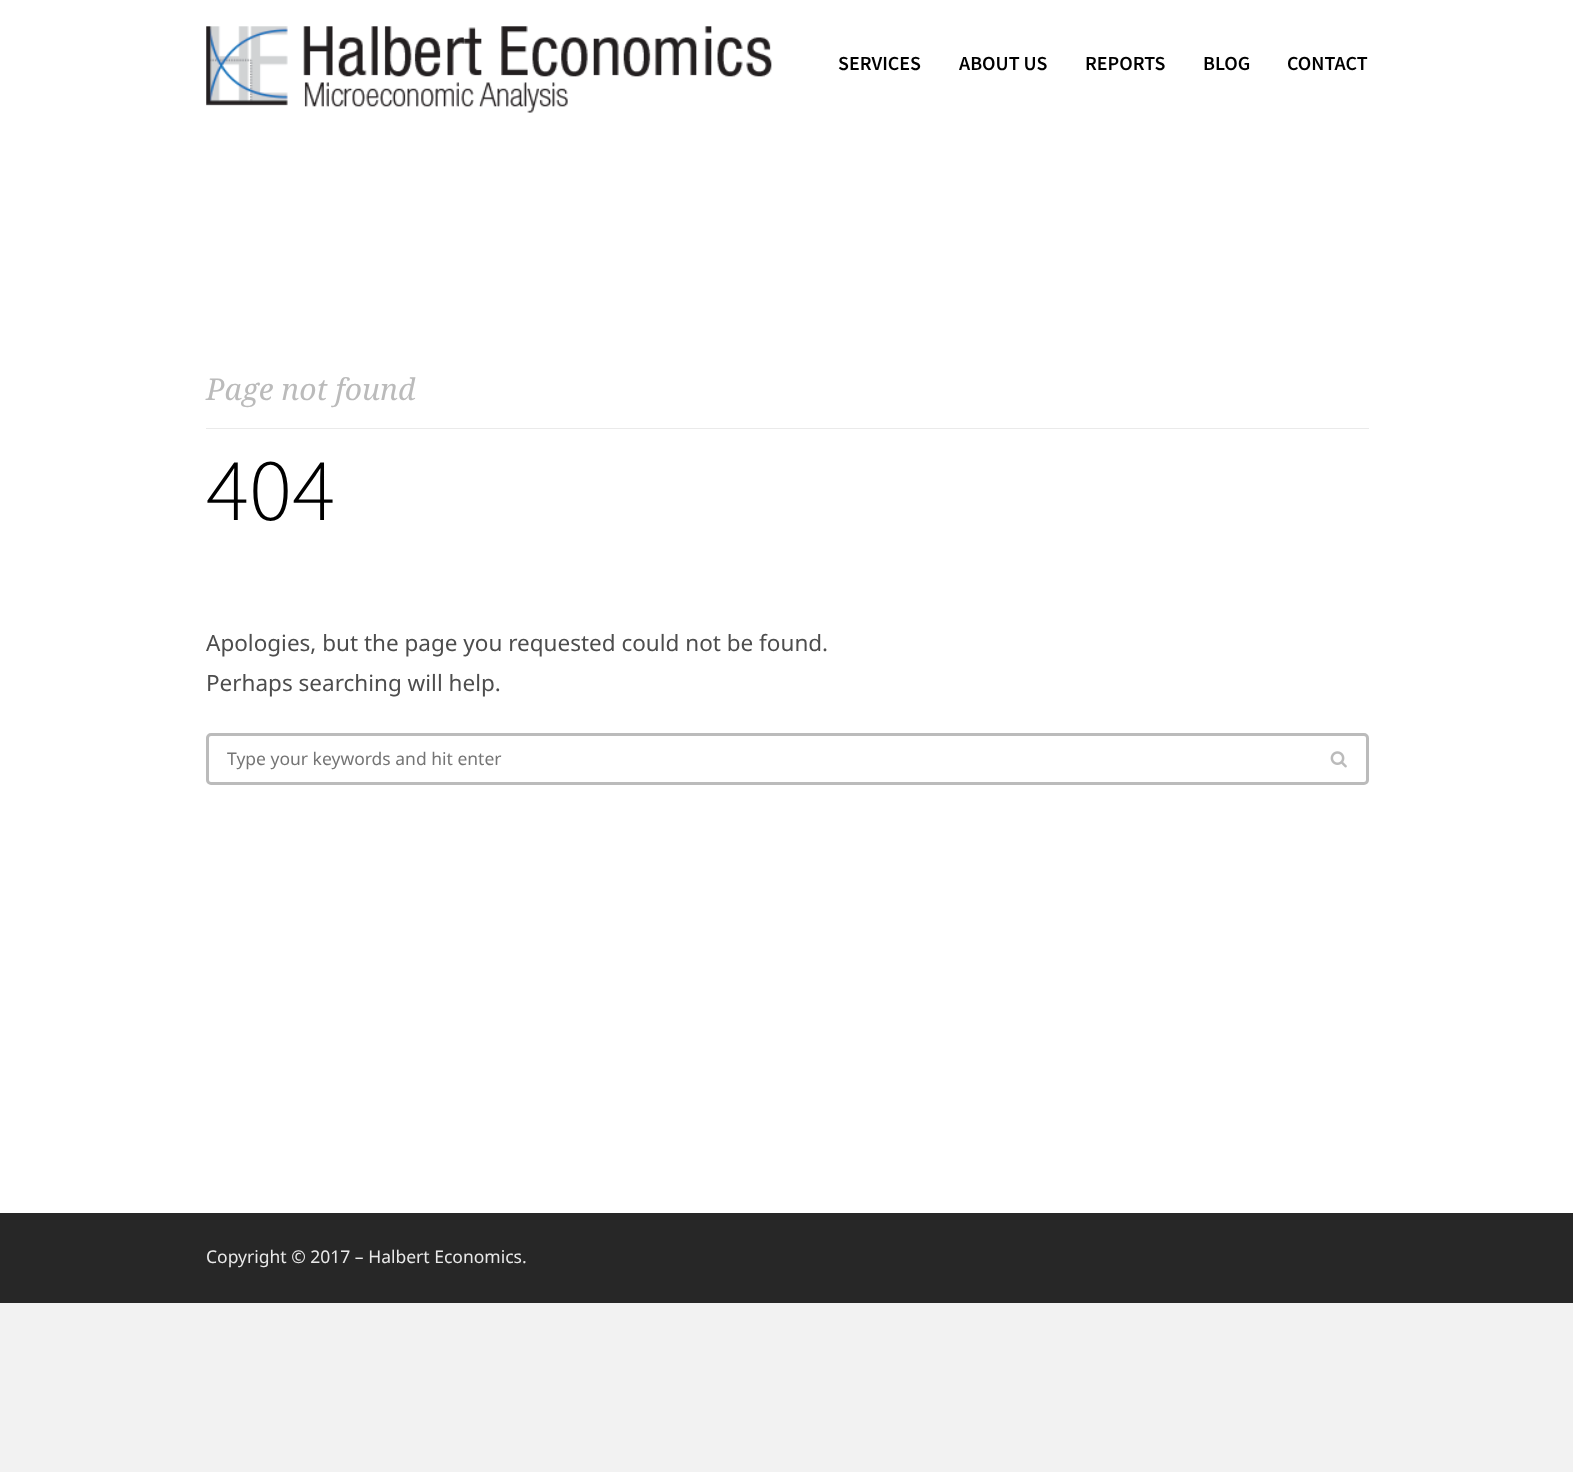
<?xml version="1.0" encoding="UTF-8"?>
<svg xmlns="http://www.w3.org/2000/svg" xmlns:xlink="http://www.w3.org/1999/xlink" width="1573" height="1472">
  <rect width="100%" height="100%" fill="#f2f2f2" />
  <rect width="1573" height="1213" fill="#ffffff" />
  <image x="206" y="26" width="566" height="87" xlink:href="image1.png" />
  <rect x="206" y="428" width="1163" height="1" fill="#eaeaea" />
  <rect x="207.5" y="734.5" width="1160" height="49" rx="3.5" fill="none" stroke="#bbbbbb" stroke-width="3" />
  <image x="1330" y="751" width="17" height="17" xlink:href="image2.png" />
  <rect y="1213" width="1573" height="90" fill="#272727" />
  <text x="838" y="70" style="font-family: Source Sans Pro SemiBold; font-size: 20px; font-weight: 600; fill: #000000">SERVICES</text>
  <text x="959" y="70" style="font-family: Source Sans Pro SemiBold; font-size: 20px; font-weight: 600; fill: #000000">ABOUT US</text>
  <text x="1085" y="70" style="font-family: Source Sans Pro SemiBold; font-size: 20px; font-weight: 600; fill: #000000">REPORTS</text>
  <text x="1203" y="70" style="font-family: Source Sans Pro SemiBold; font-size: 20px; font-weight: 600; fill: #000000">BLOG</text>
  <text x="1287" y="70" style="font-family: Source Sans Pro SemiBold; font-size: 20px; font-weight: 600; fill: #000000">CONTACT</text>
  <text x="206" y="400" style="font-family: Noto Serif; font-size: 30px; font-style: italic; fill: #bbbbbb">Page not found</text>
  <text x="206" y="520" style="font-family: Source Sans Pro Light; font-size: 90px; font-weight: 300; fill: #000000">404</text>
  <text x="206" y="651" style="font-family: Noto Sans; font-size: 22.5px; fill: #4d4d4d">Apologies, but the page you requested could not be found.</text>
  <text x="206" y="691" style="font-family: Noto Sans; font-size: 22.5px; fill: #4d4d4d">Perhaps searching will help.</text>
  <text x="227" y="765" style="font-family: Noto Sans; font-size: 17.5px; fill: #757575">Type your keywords and hit enter</text>
  <text x="206" y="1263" style="font-family: Noto Sans; font-size: 17.5px; fill: #e9e9e9">Copyright © 2017 – Halbert Economics.</text>
</svg>
